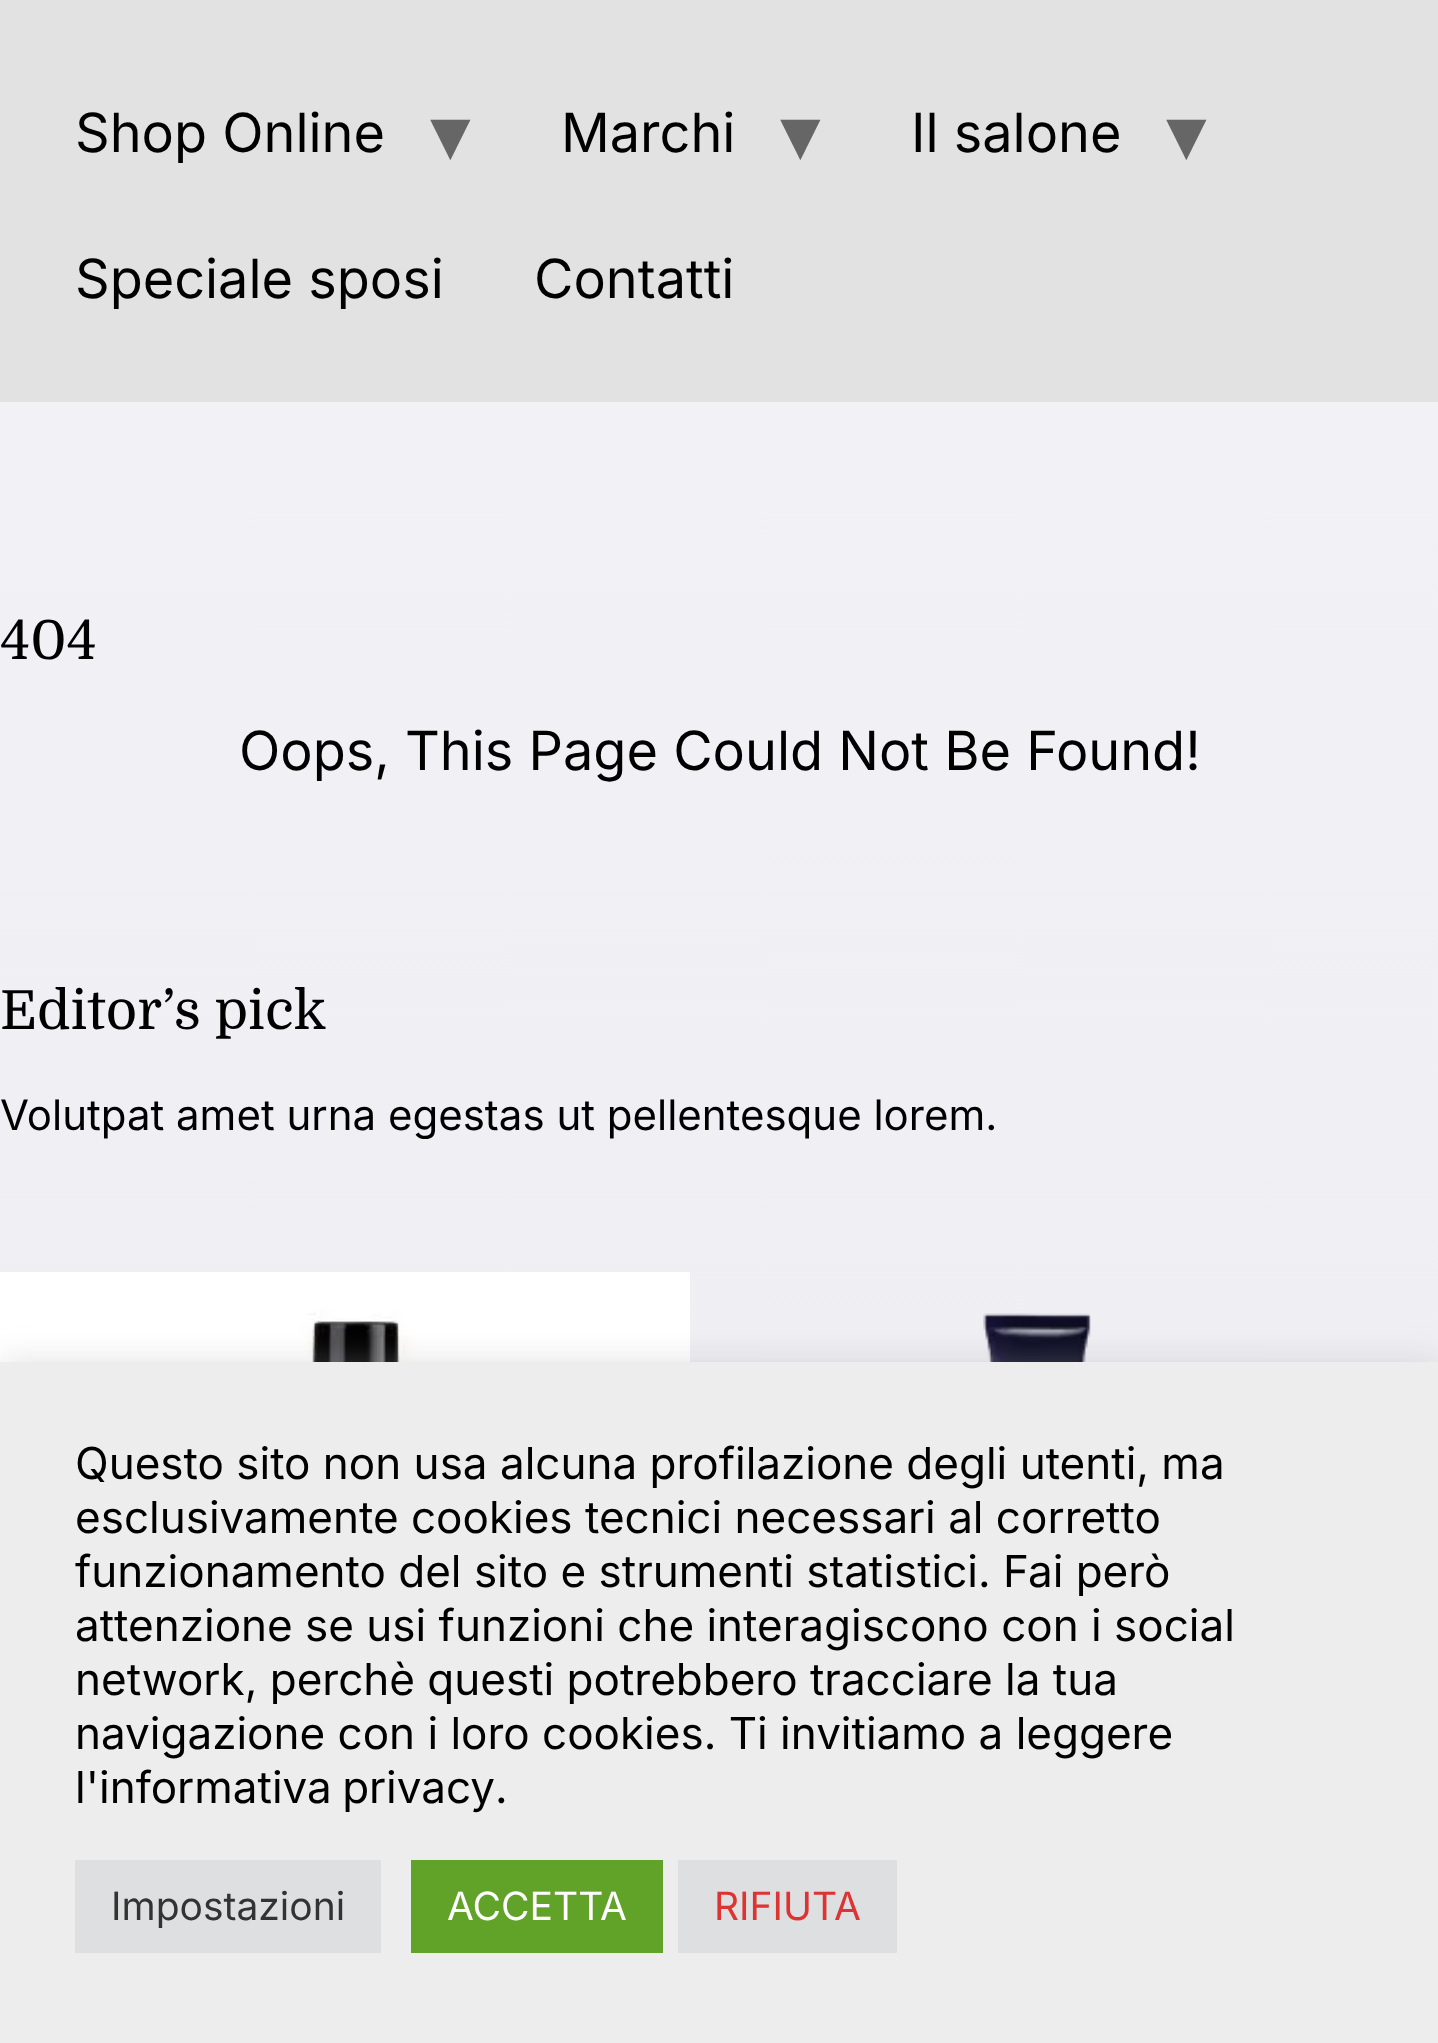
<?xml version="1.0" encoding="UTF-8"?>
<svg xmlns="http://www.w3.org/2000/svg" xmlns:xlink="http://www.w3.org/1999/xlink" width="1438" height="2043">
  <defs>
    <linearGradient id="g1" gradientUnits="userSpaceOnUse" x1="720" y1="402" x2="720" y2="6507"><stop offset="0" stop-color="#f2f1f6" /><stop offset="1" stop-color="#e0e0e0" /></linearGradient>
  </defs>
  <rect width="100%" height="100%" fill="#e2e2e2" />
  <rect y="402" width="1438" height="960" fill="url(#g1)" />
  <image x="0" y="1272" width="690" height="90" xlink:href="image1.png" />
  <image x="983" y="1313" width="108" height="49" xlink:href="image2.png" />
  <rect y="1359" width="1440" height="681" fill="#acabab" fill-opacity="0.3" filter="blur(15px)" />
  <rect y="1362" width="1438" height="681" fill="#ededed" />
  <rect x="75" y="1860" width="306" height="93" fill="#dedfe0" />
  <rect x="411" y="1860" width="252" height="93" fill="#61a229" />
  <rect x="678" y="1860" width="219" height="93" fill="#dedfe0" />
  <text x="75" y="152" style="font-family: Inter; font-size: 54px; fill: #000000">Shop Online</text>
  <text x="430" y="161" style="font-family: DejaVu Sans; font-size: 81px; fill: #666666">▾</text>
  <text x="561" y="152" style="font-family: Inter; font-size: 54px; fill: #000000">Marchi</text>
  <text x="780" y="161" style="font-family: DejaVu Sans; font-size: 81px; fill: #666666">▾</text>
  <text x="911" y="152" style="font-family: Inter; font-size: 54px; fill: #000000">Il salone</text>
  <text x="1166" y="161" style="font-family: DejaVu Sans; font-size: 81px; fill: #666666">▾</text>
  <text x="75" y="298" style="font-family: Inter; font-size: 54px; fill: #000000">Speciale sposi</text>
  <text x="534" y="298" style="font-family: Inter; font-size: 54px; fill: #000000">Contatti</text>
  <text x="0" y="659" style="font-family: Domine; font-size: 54px; fill: #000000">404</text>
  <text x="239" y="770" style="font-family: Inter; font-size: 54px; fill: #000000">Oops, This Page Could Not Be Found!</text>
  <text x="0" y="1029" style="font-family: Domine; font-size: 54px; fill: #000000">Editor’s pick</text>
  <text x="0" y="1130" style="font-family: Inter; font-size: 42px; fill: #000000">Volutpat amet urna egestas ut pellentesque lorem.</text>
  <text x="75" y="1479" style="font-family: Inter; font-size: 44px; fill: #000000">Questo sito non usa alcuna profilazione degli utenti, ma</text>
  <text x="75" y="1533" style="font-family: Inter; font-size: 44px; fill: #000000">esclusivamente cookies tecnici necessari al corretto</text>
  <text x="75" y="1587" style="font-family: Inter; font-size: 44px; fill: #000000">funzionamento del sito e strumenti statistici. Fai però</text>
  <text x="75" y="1641" style="font-family: Inter; font-size: 44px; fill: #000000">attenzione se usi funzioni che interagiscono con i social</text>
  <text x="75" y="1695" style="font-family: Inter; font-size: 44px; fill: #000000">network, perchè questi potrebbero tracciare la tua</text>
  <text x="75" y="1749" style="font-family: Inter; font-size: 44px; fill: #000000">navigazione con i loro cookies. Ti invitiamo a leggere</text>
  <text x="75" y="1803" style="font-family: Inter; font-size: 44px; fill: #000000">l'</text>
  <text x="99" y="1803" word-spacing="-2" style="font-family: Inter; font-size: 44px; fill: #000000">informativa privacy</text>
  <text x="495" y="1803" style="font-family: Inter; font-size: 44px; fill: #000000">.</text>
  <text x="111" y="1920" style="font-family: Inter; font-size: 39px; fill: #333333">Impostazioni</text>
  <text x="447" y="1920" style="font-family: Inter; font-size: 39px; fill: #ffffff">ACCETTA</text>
  <text x="714" y="1920" style="font-family: Inter; font-size: 39px; fill: #dd3333">RIFIUTA</text>
</svg>
